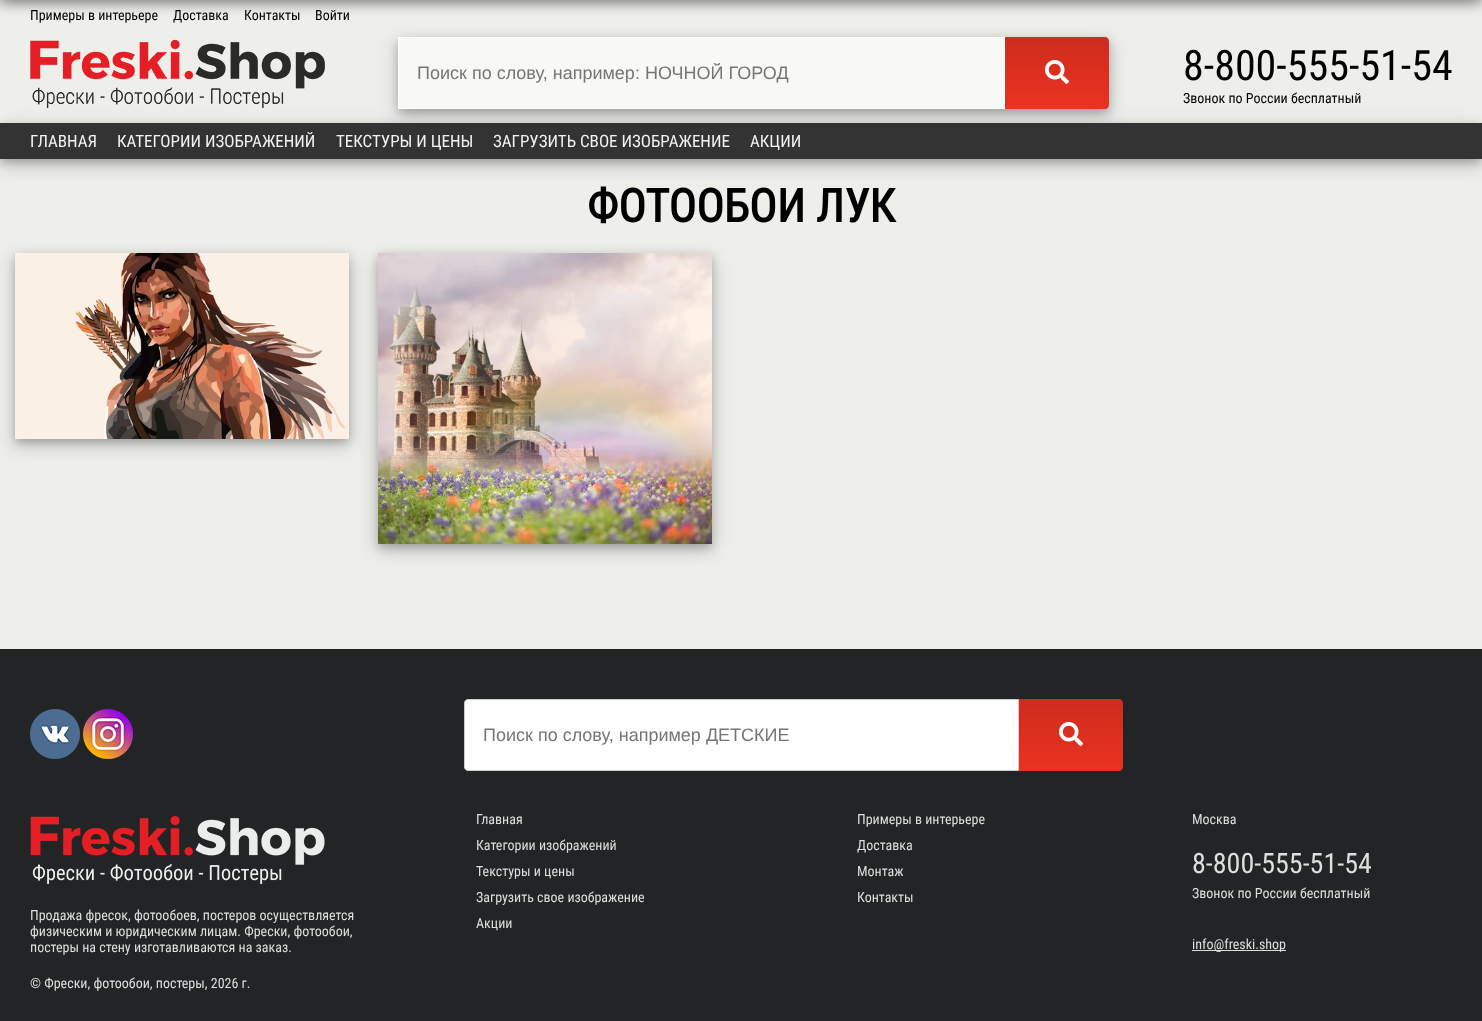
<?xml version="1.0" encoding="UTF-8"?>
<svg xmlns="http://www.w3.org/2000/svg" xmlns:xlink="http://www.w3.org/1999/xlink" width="1482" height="1021">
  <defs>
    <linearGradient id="g1" gradientUnits="userSpaceOnUse" x1="1057" y1="37" x2="1057" y2="109"><stop offset="0" stop-color="#ce2c1e" /><stop offset="1" stop-color="#ea3220" /></linearGradient>
    <linearGradient id="g2" gradientUnits="userSpaceOnUse" x1="1071" y1="699" x2="1071" y2="771"><stop offset="0" stop-color="#ce2c1e" /><stop offset="1" stop-color="#ea3220" /></linearGradient>
    <clipPath id="clip1"><rect x="417" y="63" width="561" height="21" /></clipPath>
  </defs>
  <rect width="100%" height="100%" fill="#eeefeb" />
  <rect y="-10" width="1482" height="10" fill="#000000" fill-opacity="0.8" filter="blur(7.5px)" />
  <image x="30" y="39" width="295" height="69" xlink:href="image1.png" />
  <rect x="398" y="43" width="711" height="72" fill="#000000" fill-opacity="0.19" filter="blur(10px)" />
  <rect x="398" y="41" width="711" height="72" fill="#000000" fill-opacity="0.2" filter="blur(4px)" />
  <rect x="398.5" y="37.5" width="606" height="71" fill="#f8f9f7" stroke="#ffffff" />
  <path d="M 1005 37 h 100 c 2 0 4 2 4 4 v 64 c 0 2 -2 4 -4 4 h -100 z" fill="url(#g1)" />
  <image x="1045" y="60" width="24" height="24" xlink:href="image2.png" />
  <rect y="129" width="1482" height="36" fill="#000000" fill-opacity="0.19" filter="blur(10px)" />
  <rect y="127" width="1482" height="36" fill="#000000" fill-opacity="0.2" filter="blur(4px)" />
  <rect y="123" width="1482" height="36" fill="#333333" />
  <rect x="15" y="259" width="334" height="186" fill="#000000" fill-opacity="0.19" filter="blur(10px)" />
  <rect x="15" y="257" width="334" height="186" fill="#000000" fill-opacity="0.2" filter="blur(4px)" />
  <image x="15" y="253" width="334" height="186" xlink:href="image3.png" />
  <rect x="378" y="259" width="334" height="291" fill="#000000" fill-opacity="0.19" filter="blur(10px)" />
  <rect x="378" y="257" width="334" height="291" fill="#000000" fill-opacity="0.2" filter="blur(4px)" />
  <image x="378" y="253" width="334" height="291" xlink:href="image4.png" />
  <rect y="649" width="1482" height="372" fill="#222425" />
  <image x="30" y="709" width="50" height="50" xlink:href="image5.png" />
  <image x="83" y="709" width="50" height="50" xlink:href="image6.png" />
  <path d="M 468 699.5 h 550.5 v 71 h -550.5 c -2 0 -3.5 -1.5 -3.5 -3.5 v -64 c 0 -2 1.5 -3.5 3.5 -3.5 z" fill="#ffffff" stroke="#cccccc" />
  <path d="M 1019 699 h 100 c 2 0 4 2 4 4 v 64 c 0 2 -2 4 -4 4 h -100 z" fill="url(#g2)" />
  <image x="1059" y="722" width="24" height="24" xlink:href="image2.png" />
  <image x="30" y="811" width="295" height="73" xlink:href="image7.png" />
  <rect x="1192" y="950" width="94" height="1" fill="#dedede" />
  <text x="30" y="20" style="font-family: Roboto Condensed; font-size: 14px; fill: #000000">Примеры в интерьере</text>
  <text x="173" y="20" style="font-family: Roboto Condensed; font-size: 14px; fill: #000000">Доставка</text>
  <text x="244" y="20" style="font-family: Roboto Condensed; font-size: 14px; fill: #000000">Контакты</text>
  <text x="315" y="20" style="font-family: Roboto Condensed; font-size: 14px; fill: #000000">Войти</text>
  <g clip-path="url(#clip1)">
    <text x="417" y="79" style="font-family: Liberation Sans; font-size: 18px; fill: #757575">Поиск по слову, например: НОЧНОЙ ГОРОД</text>
  </g>
  <text x="1183" y="80" style="font-family: Roboto Condensed; font-size: 42px; fill: #000000">8-800-555-51-54</text>
  <text x="1183" y="103" style="font-family: Roboto Condensed; font-size: 14px; fill: #000000">Звонок по России бесплатный</text>
  <text x="30" y="147" style="font-family: Roboto Condensed; font-size: 17px; fill: #f2f2f2">ГЛАВНАЯ</text>
  <text x="117" y="147" style="font-family: Roboto Condensed; font-size: 17px; fill: #f2f2f2">КАТЕГОРИИ ИЗОБРАЖЕНИЙ</text>
  <text x="336" y="147" style="font-family: Roboto Condensed; font-size: 17px; fill: #f2f2f2">ТЕКСТУРЫ И ЦЕНЫ</text>
  <text x="493" y="147" style="font-family: Roboto Condensed; font-size: 17px; fill: #f2f2f2">ЗАГРУЗИТЬ СВОЕ ИЗОБРАЖЕНИЕ</text>
  <text x="750" y="147" style="font-family: Roboto Condensed; font-size: 17px; fill: #f2f2f2">АКЦИИ</text>
  <text x="587" y="222" style="font-family: Roboto Condensed; font-size: 46px; font-weight: bold; fill: #000000">ФОТООБОИ ЛУК</text>
  <text x="483" y="741" style="font-family: Liberation Sans; font-size: 18px; fill: #757575">Поиск по слову, например ДЕТСКИЕ</text>
  <text x="30" y="920" style="font-family: Roboto Condensed; font-size: 14px; fill: #dedede">Продажа фресок, фотообоев, постеров осуществляется</text>
  <text x="30" y="936" style="font-family: Roboto Condensed; font-size: 14px; fill: #dedede">физическим и юридическим лицам. Фрески, фотообои,</text>
  <text x="30" y="952" style="font-family: Roboto Condensed; font-size: 14px; fill: #dedede">постеры на стену изготавливаются на заказ.</text>
  <text x="30" y="988" style="font-family: Roboto Condensed; font-size: 14px; fill: #dedede">© Фрески, фотообои, постеры, 2026 г.</text>
  <text x="476" y="824" style="font-family: Roboto Condensed; font-size: 14px; fill: #dedede">Главная</text>
  <text x="476" y="850" style="font-family: Roboto Condensed; font-size: 14px; fill: #dedede">Категории изображений</text>
  <text x="476" y="876" style="font-family: Roboto Condensed; font-size: 14px; fill: #dedede">Текстуры и цены</text>
  <text x="476" y="902" style="font-family: Roboto Condensed; font-size: 14px; fill: #dedede">Загрузить свое изображение</text>
  <text x="476" y="928" style="font-family: Roboto Condensed; font-size: 14px; fill: #dedede">Акции</text>
  <text x="857" y="824" style="font-family: Roboto Condensed; font-size: 14px; fill: #dedede">Примеры в интерьере</text>
  <text x="857" y="850" style="font-family: Roboto Condensed; font-size: 14px; fill: #dedede">Доставка</text>
  <text x="857" y="876" style="font-family: Roboto Condensed; font-size: 14px; fill: #dedede">Монтаж</text>
  <text x="857" y="902" style="font-family: Roboto Condensed; font-size: 14px; fill: #dedede">Контакты</text>
  <text x="1192" y="824" style="font-family: Roboto Condensed; font-size: 14px; fill: #dedede">Москва</text>
  <text x="1192" y="873" style="font-family: Roboto Condensed; font-size: 28px; fill: #dedede">8-800-555-51-54</text>
  <text x="1192" y="898" style="font-family: Roboto Condensed; font-size: 14px; fill: #dedede">Звонок по России бесплатный</text>
  <text x="1192" y="949" style="font-family: Roboto Condensed; font-size: 14px; fill: #dedede">info@freski.shop</text>
</svg>
